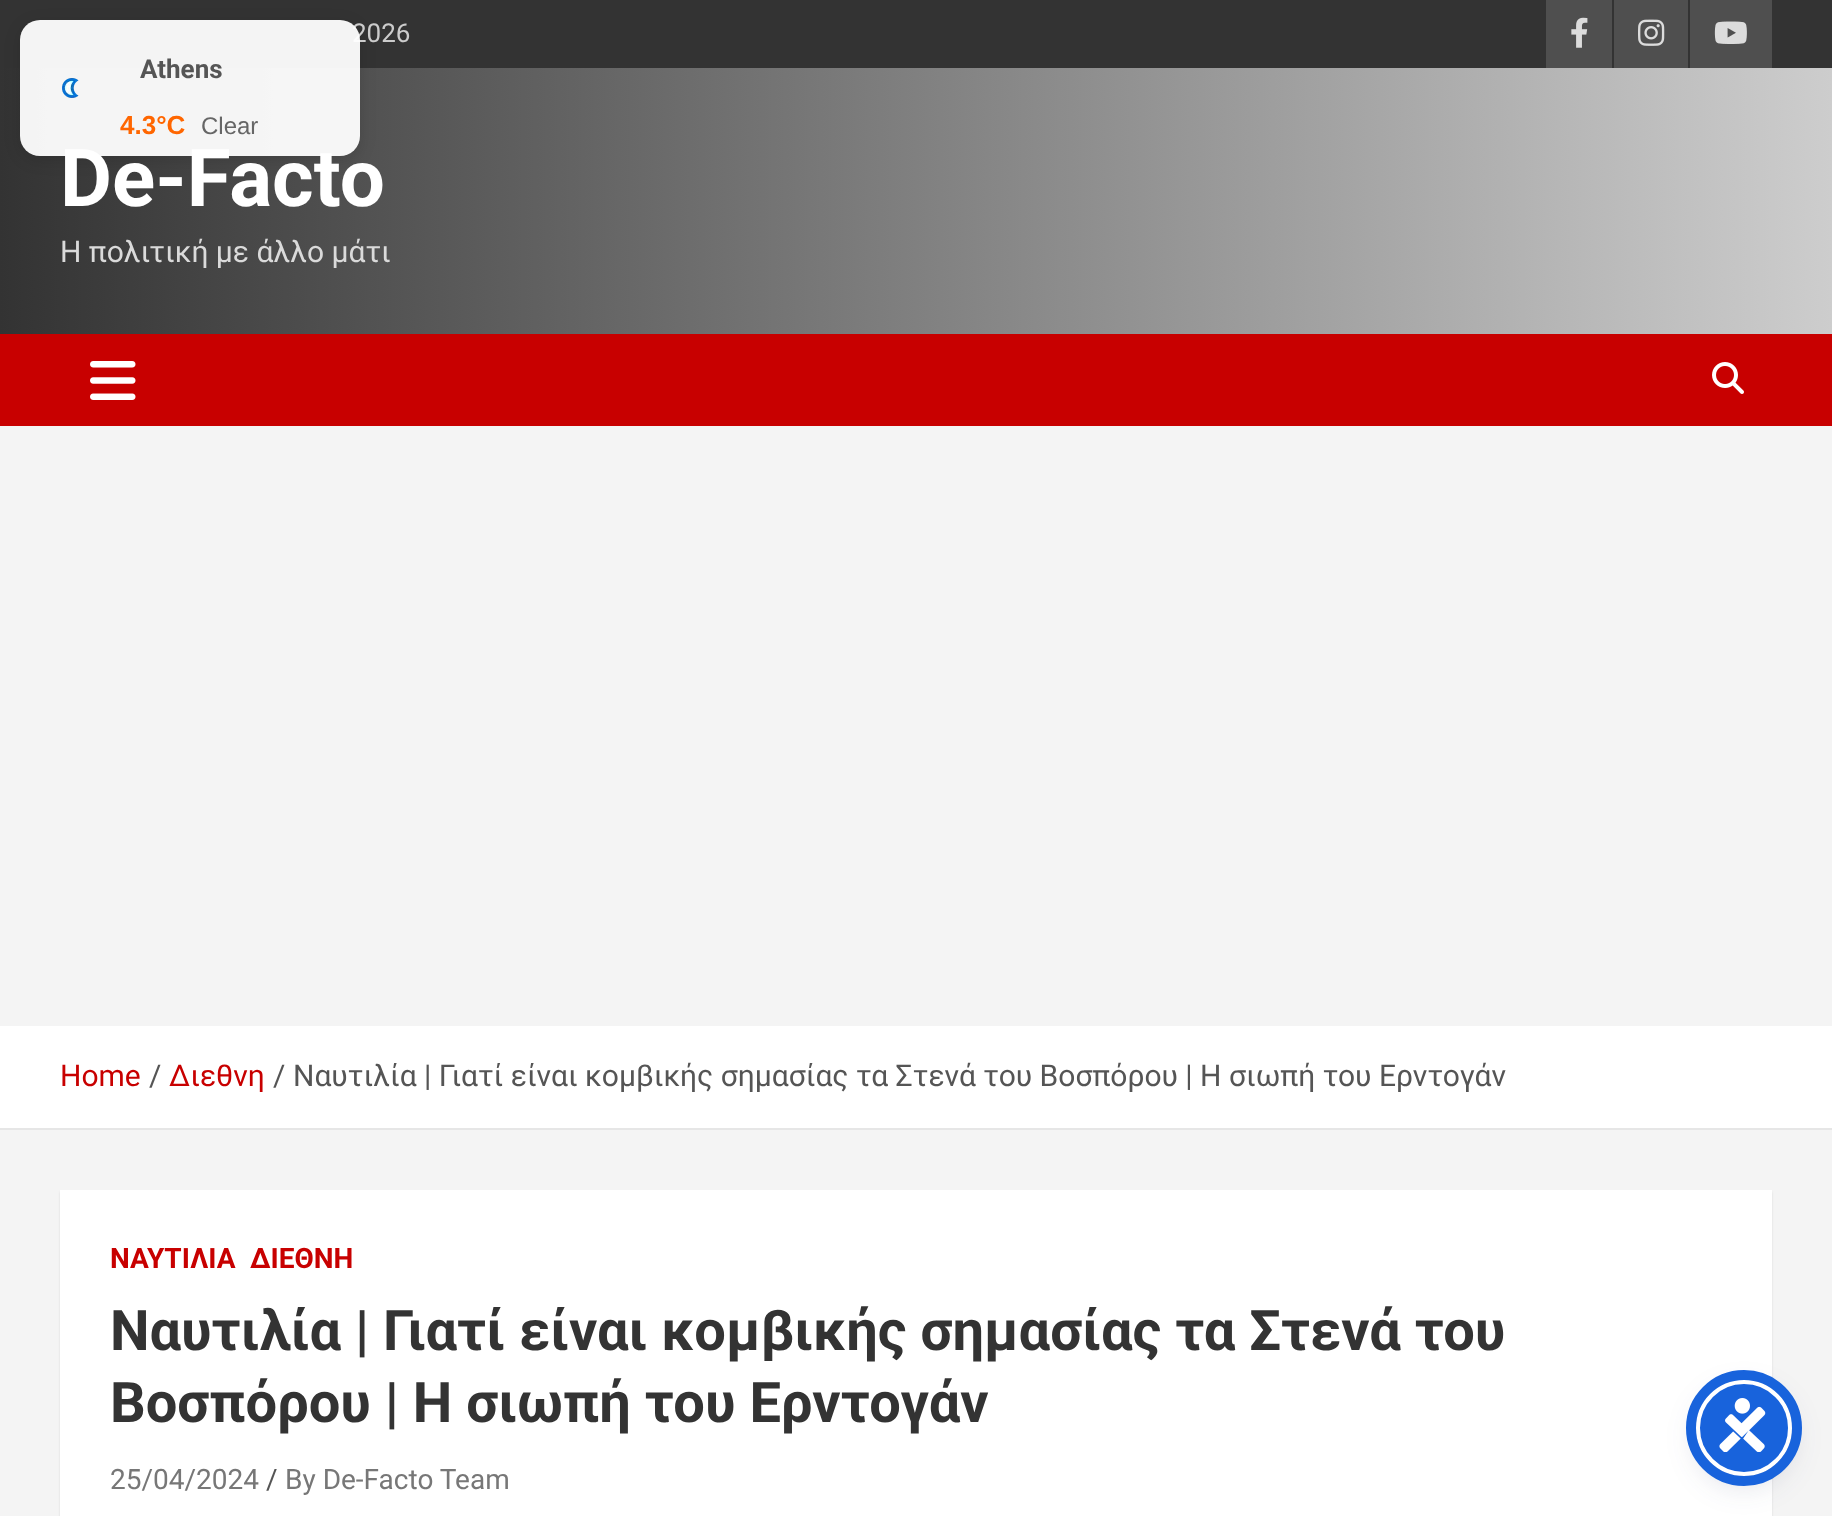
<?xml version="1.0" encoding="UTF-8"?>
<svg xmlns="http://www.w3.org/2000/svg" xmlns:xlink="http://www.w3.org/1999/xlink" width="1832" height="1516">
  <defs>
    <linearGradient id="g1" gradientUnits="userSpaceOnUse" x1="0" y1="201" x2="1832" y2="201"><stop offset="0" stop-color="#333333" /><stop offset="1" stop-color="#cdcdcd" /></linearGradient>
    <clipPath id="clip1"><path d="M 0 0 h 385 v 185 h -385 z m 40 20 h 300 c 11 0 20 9 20 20 v 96 c 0 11 -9 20 -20 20 h -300 c -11 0 -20 -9 -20 -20 v -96 c 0 -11 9 -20 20 -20 z" clip-rule="evenodd" /></clipPath>
  </defs>
  <rect width="100%" height="100%" fill="#f4f4f4" />
  <rect width="1832" height="68" fill="#333333" />
  <rect x="1546" width="66" height="68" fill="#4f4f4f" />
  <image x="1571" y="17" width="17" height="31" xlink:href="image1.png" />
  <rect x="1614" width="74" height="68" fill="#4f4f4f" />
  <image x="1638" y="19" width="27" height="27" xlink:href="image2.png" />
  <rect x="1690" width="82" height="68" fill="#4f4f4f" />
  <image x="1714" y="21" width="33" height="23" xlink:href="image3.png" />
  <rect y="68" width="1832" height="266" fill="url(#g1)" />
  <rect y="334" width="1832" height="92" fill="#c80000" />
  <image x="90" y="361" width="46" height="39" xlink:href="image4.png" />
  <image x="1712" y="362" width="32" height="32" xlink:href="image5.png" />
  <rect y="1026" width="1832" height="102" fill="#ffffff" />
  <rect y="1128" width="1832" height="2" fill="#e6e6e6" />
  <rect x="60" y="1192" width="1712" height="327" fill="#000000" fill-opacity="0.1" filter="blur(1px)" />
  <rect x="60" y="1190" width="1712" height="326" fill="#ffffff" />
  <g clip-path="url(#clip1)">
    <rect x="20" y="24" width="340" height="136" rx="20" fill="#000000" fill-opacity="0.12" filter="blur(8px)" />
  </g>
  <rect x="1696" y="1384" width="96" height="96" rx="48" fill="#5d6494" fill-opacity="0.2" filter="blur(4px)" />
  <rect x="1696" y="1390" width="96" height="96" rx="48" fill="#252c61" fill-opacity="0.15" filter="blur(15px)" />
  <circle cx="1744" cy="1428" r="46" fill="#1863dc" stroke="#ffffff" stroke-width="4" />
  <circle cx="1744" cy="1428" r="53" fill="none" stroke="#1863dc" stroke-width="10" />
  <image x="1719" y="1398" width="47" height="54" xlink:href="image7.png" />
  <text x="352" y="42" style="font-family: Roboto; font-size: 26px; fill: #cccccc">2026</text>
  <text x="60" y="206" style="font-family: Roboto; font-size: 80px; font-weight: bold; fill: #ffffff">De-Facto</text>
  <text x="60" y="262" style="font-family: Roboto; font-size: 30px; fill: #dadada">Η πολιτική με άλλο μάτι</text>
  <text x="60" y="1086" style="font-family: Roboto; font-size: 30px; fill: #c80000">Home</text>
  <text x="149" y="1086" style="font-family: Roboto; font-size: 30px; fill: #555555">/</text>
  <text x="169" y="1086" style="font-family: Roboto; font-size: 30px; fill: #c80000">Διεθνη</text>
  <text x="273" y="1086" style="font-family: Roboto; font-size: 30px; fill: #555555">/</text>
  <text x="293" y="1086" style="font-family: Roboto; font-size: 30px; fill: #555555">Ναυτιλία | Γιατί είναι κομβικής σημασίας τα Στενά του Βοσπόρου | Η σιωπή του Ερντογάν</text>
  <text x="110" y="1268" style="font-family: Roboto; font-size: 28px; font-weight: bold; fill: #c80000">ΝΑΥΤΙΛΙΑ</text>
  <text x="250" y="1268" style="font-family: Roboto; font-size: 28px; font-weight: bold; fill: #c80000">ΔΙΕΘΝΗ</text>
  <text x="110" y="1350" style="font-family: Roboto; font-size: 56px; font-weight: bold; fill: #333333">Ναυτιλία | Γιατί είναι κομβικής σημασίας τα Στενά του</text>
  <text x="110" y="1422" style="font-family: Roboto; font-size: 56px; font-weight: bold; fill: #333333">Βοσπόρου | Η σιωπή του Ερντογάν</text>
  <text x="110" y="1489" style="font-family: Roboto; font-size: 28px; fill: #777777">25/04/2024</text>
  <text x="266" y="1489" style="font-family: Roboto; font-size: 28px; fill: #555555">/</text>
  <text x="285" y="1489" style="font-family: Roboto; font-size: 28px; fill: #777777">By De-Facto Team</text>
  <rect x="20" y="20" width="340" height="136" rx="20" fill="#ffffff" fill-opacity="0.95" />
  <image x="62" y="78" width="17" height="20" xlink:href="image6.png" />
  <text x="140" y="78" style="font-family: Roboto; font-size: 26px; font-weight: bold; fill: #555555">Athens</text>
  <text x="120" y="134" style="font-family: Liberation Sans; font-size: 26px; font-weight: bold; fill: #ff6600">4.3°C</text>
  <text x="201" y="134" style="font-family: Liberation Sans; font-size: 24px; fill: #666666">Clear</text>
</svg>
